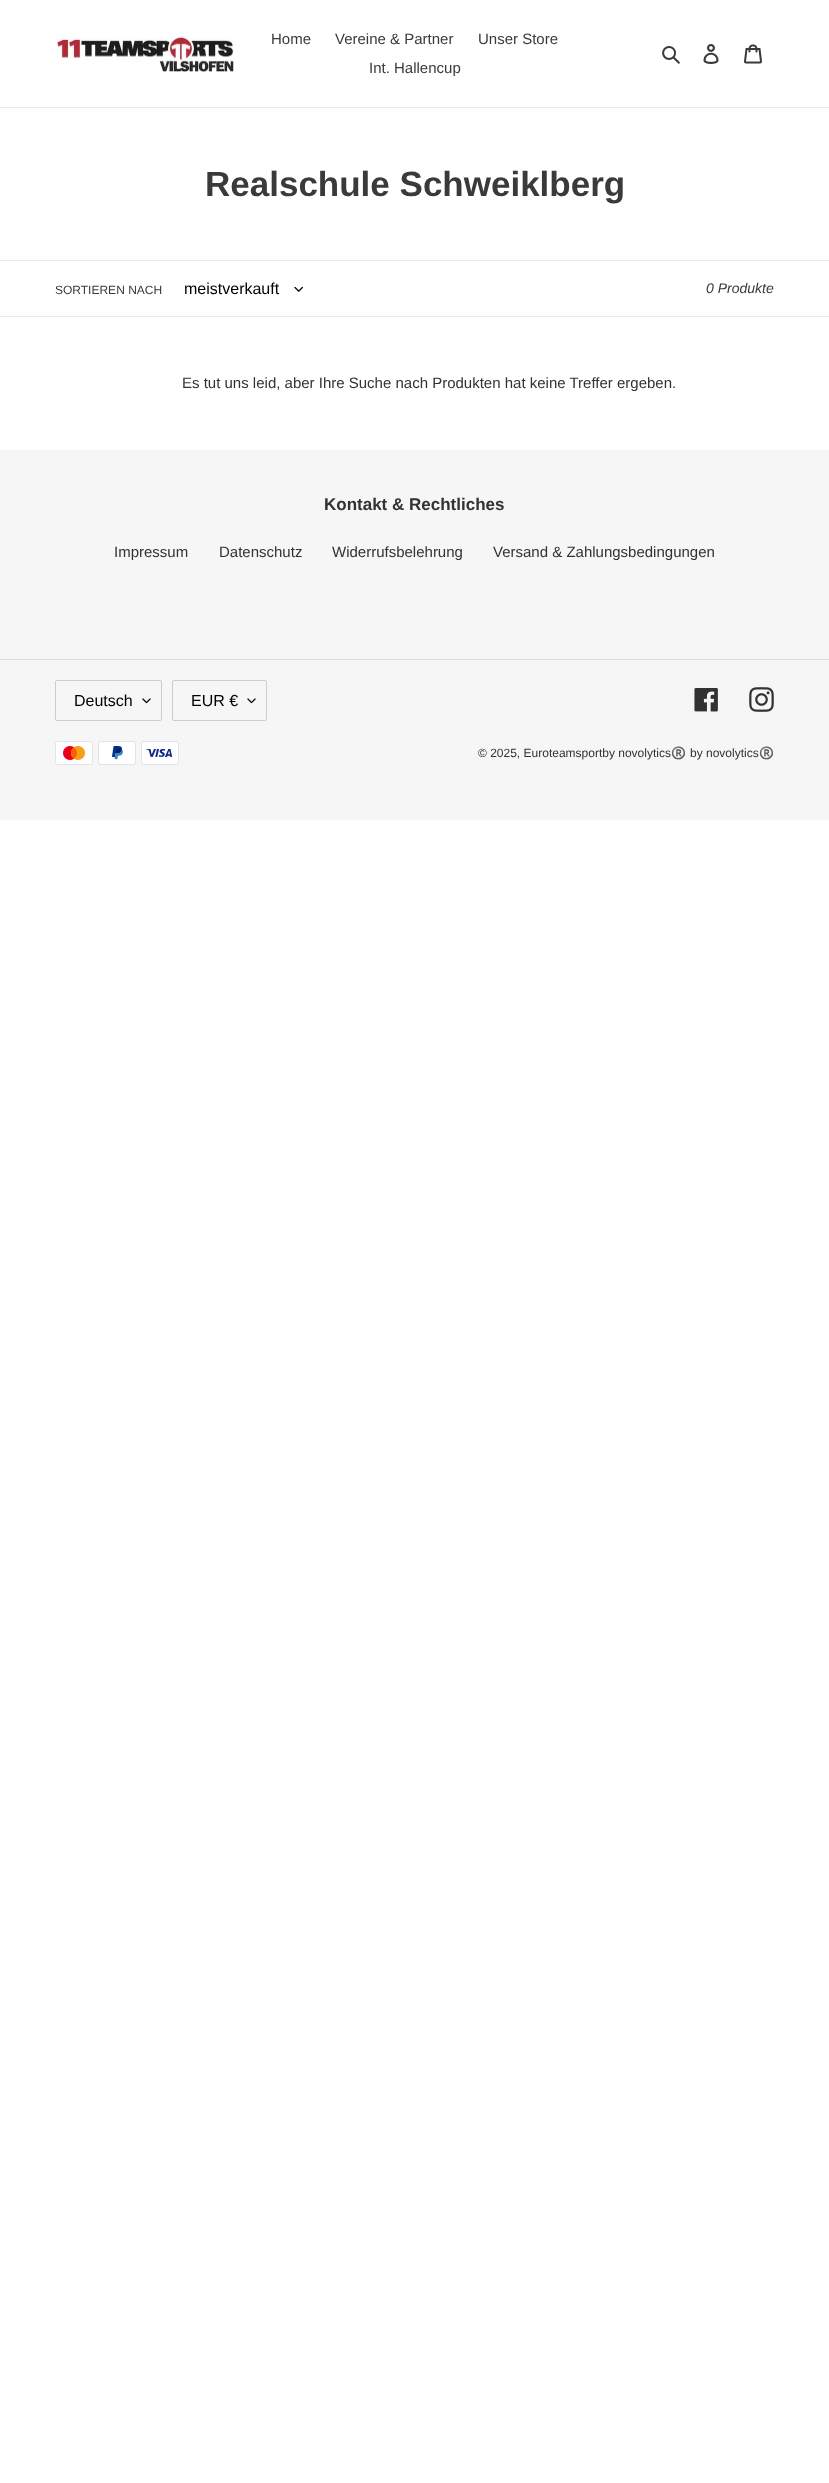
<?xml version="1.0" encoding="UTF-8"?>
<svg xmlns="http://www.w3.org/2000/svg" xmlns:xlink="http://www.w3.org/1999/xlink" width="829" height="2483">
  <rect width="100%" height="100%" fill="#ffffff" />
  <rect y="107" width="829" height="1" fill="#ebebeb" />
  <image x="55" y="35" width="179" height="37" xlink:href="image1.png" />
  <image x="662" y="46" width="18" height="18" xlink:href="image2.png" />
  <image x="703" y="44" width="16" height="20" xlink:href="image3.png" />
  <image x="744" y="44" width="18" height="20" xlink:href="image4.png" />
  <rect y="260" width="829" height="1" fill="#ebebeb" />
  <rect y="316" width="829" height="1" fill="#ebebeb" />
  <image x="294" y="286" width="9" height="6" xlink:href="image5.png" />
  <rect y="450" width="829" height="370" fill="#f6f6f6" />
  <rect y="659" width="829" height="1" fill="#dddddd" />
  <image x="142" y="698" width="9" height="6" xlink:href="image6.png" />
  <rect x="55.5" y="680.5" width="106" height="40" rx="1.5" fill="none" stroke="#cccccc" />
  <image x="247" y="698" width="9" height="6" xlink:href="image6.png" />
  <rect x="172.5" y="680.5" width="94" height="40" rx="1.5" fill="none" stroke="#cccccc" />
  <image x="694" y="688" width="24" height="24" xlink:href="image7.png" />
  <image x="749" y="687" width="25" height="25" xlink:href="image8.png" />
  <image x="55" y="741" width="38" height="24" xlink:href="image9.png" />
  <image x="98" y="741" width="38" height="24" xlink:href="image10.png" />
  <image x="141" y="741" width="38" height="24" xlink:href="image11.png" />
  <text x="271" y="44" style="font-family: Liberation Sans; font-size: 15px; fill: #3a3a3a">Home</text>
  <text x="335" y="44" style="font-family: Liberation Sans; font-size: 15px; fill: #3a3a3a">Vereine &amp; Partner</text>
  <text x="478" y="44" style="font-family: Liberation Sans; font-size: 15px; fill: #3a3a3a">Unser Store</text>
  <text x="369" y="73" style="font-family: Liberation Sans; font-size: 15px; fill: #3a3a3a">Int. Hallencup</text>
  <text x="205" y="196" style="font-family: Liberation Sans; font-size: 35px; font-weight: bold; fill: #3a3a3a">Realschule Schweiklberg</text>
  <text x="55" y="294" style="font-family: Liberation Sans; font-size: 12px; fill: #3a3a3a">SORTIEREN NACH</text>
  <text x="184" y="294" style="font-family: Liberation Sans; font-size: 16px; fill: #000000">meistverkauft</text>
  <text x="706" y="293" style="font-family: Liberation Sans; font-size: 14px; font-style: italic; fill: #3a3a3a">0 Produkte</text>
  <text x="182" y="388" style="font-family: Liberation Sans; font-size: 15px; fill: #333232">Es tut uns leid, aber Ihre Suche nach Produkten hat keine Treffer ergeben.</text>
  <text x="324" y="510" style="font-family: Liberation Sans; font-size: 17px; font-weight: bold; fill: #333232">Kontakt &amp; Rechtliches</text>
  <text x="114" y="557" style="font-family: Liberation Sans; font-size: 15px; fill: #333232">Impressum</text>
  <text x="219" y="557" style="font-family: Liberation Sans; font-size: 15px; fill: #333232">Datenschutz</text>
  <text x="332" y="557" style="font-family: Liberation Sans; font-size: 15px; fill: #333232">Widerrufsbelehrung</text>
  <text x="493" y="557" style="font-family: Liberation Sans; font-size: 15px; fill: #333232">Versand &amp; Zahlungsbedingungen</text>
  <text x="74" y="706" style="font-family: Liberation Sans; font-size: 16px; fill: #000000">Deutsch</text>
  <text x="191" y="706" style="font-family: Liberation Sans; font-size: 16px; fill: #000000">EUR €</text>
  <text x="478" y="757" style="font-family: Liberation Sans; font-size: 12px; fill: #333232">© 2025, Euroteamsportby novolytics</text>
  <text x="671" y="757" style="font-family: Noto Color Emoji; font-size: 12px; fill: #333232">®️</text>
  <text x="690" y="757" style="font-family: Liberation Sans; font-size: 12px; fill: #333232">by novolytics</text>
  <text x="759" y="757" style="font-family: Noto Color Emoji; font-size: 12px; fill: #333232">®️</text>
</svg>
